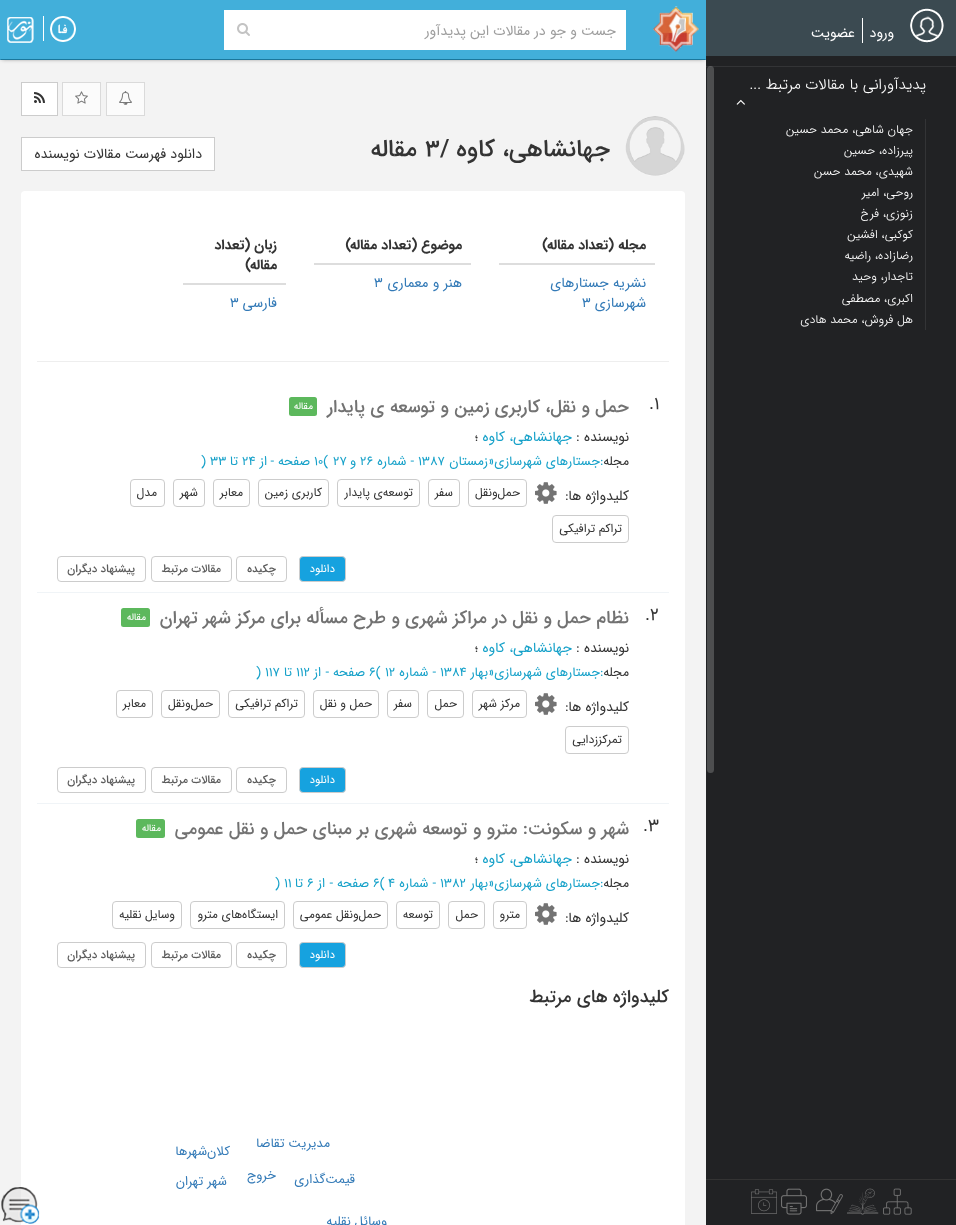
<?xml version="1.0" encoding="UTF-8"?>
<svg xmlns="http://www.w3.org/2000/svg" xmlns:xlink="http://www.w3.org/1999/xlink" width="956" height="1225">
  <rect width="100%" height="100%" fill="#f3f3f3" />
  <rect x="2" y="2" width="702" height="56" fill="#333333" filter="blur(2.5px)" />
  <rect x="706" y="56" width="250" height="1169" fill="#212224" />
  <rect x="706" width="250" height="56" fill="#3b4a51" />
  <image x="910" y="8" width="34" height="35" xlink:href="image1.png" />
  <rect x="862" y="18" width="1" height="25" fill="#ffffff" />
  <rect x="706" y="1179" width="250" height="1" fill="#333333" />
  <rect x="706" y="66" width="250" height="1" fill="#333436" />
  <image x="736" y="99" width="9" height="6" xlink:href="image2.png" />
  <rect x="925" y="119" width="1" height="211" fill="#333436" />
  <rect x="707" y="66" width="7" height="707" rx="3.5" fill="#ffffff" fill-opacity="0.2" />
  <image x="883" y="1188" width="29" height="27" xlink:href="image3.png" />
  <image x="847" y="1188" width="32" height="27" xlink:href="image4.png" />
  <image x="816" y="1188" width="27" height="27" xlink:href="image5.png" />
  <image x="781" y="1188" width="26" height="27" xlink:href="image6.png" />
  <image x="751" y="1189" width="26" height="25" xlink:href="image7.png" />
  <rect width="706" height="60" fill="#42afda" />
  <path d="M 706 60 h -706 l 1 -1 h 704 z" fill="#1b779c" />
  <image x="653" y="6" width="46" height="46" xlink:href="image8.png" />
  <rect x="224" y="10" width="402" height="40" fill="#ffffff" />
  <image x="237" y="23" width="13" height="13" xlink:href="image9.png" />
  <image x="50" y="16" width="26" height="26" xlink:href="image10.png" />
  <rect x="43" y="16" width="1" height="25" fill="#ffffff" />
  <image x="7" y="17" width="27" height="26" xlink:href="image11.png" />
  <rect x="106.5" y="82.5" width="38" height="33" fill="#fbfbfb" stroke="#dadada" />
  <image x="119" y="91" width="13" height="14" xlink:href="image12.png" />
  <rect x="62.5" y="82.5" width="38" height="33" fill="#fbfbfb" stroke="#dadada" />
  <image x="75" y="91" width="13" height="13" xlink:href="image13.png" />
  <rect x="21.5" y="82.5" width="36" height="33" fill="#ffffff" stroke="#cccccc" />
  <image x="34" y="92" width="11" height="11" xlink:href="image14.png" />
  <image x="625" y="116" width="60" height="60" xlink:href="image15.png" />
  <rect x="21.5" y="137.5" width="193" height="33" fill="#ffffff" stroke="#cccccc" />
  <rect x="21" y="191" width="664" height="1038" rx="4" fill="#ffffff" />
  <rect x="499" y="263" width="156" height="2" fill="#dddddd" />
  <rect x="314" y="263" width="157" height="2" fill="#dddddd" />
  <rect x="183" y="283" width="103" height="2" fill="#dddddd" />
  <rect x="37" y="361" width="632" height="1" fill="#eeeeee" />
  <rect x="289" y="397" width="28" height="19" rx="2.5" fill="#5cb85c" />
  <image x="535" y="482" width="22" height="22" xlink:href="image16.png" />
  <rect x="468.5" y="479.5" width="58" height="27" rx="3.5" fill="none" stroke="#cccccc" />
  <rect x="428.5" y="479.5" width="31" height="27" rx="3.5" fill="none" stroke="#cccccc" />
  <rect x="337.5" y="479.5" width="82" height="27" rx="3.5" fill="none" stroke="#cccccc" />
  <rect x="258.5" y="479.5" width="70" height="27" rx="3.5" fill="none" stroke="#cccccc" />
  <rect x="213.5" y="479.5" width="36" height="27" rx="3.5" fill="none" stroke="#cccccc" />
  <rect x="173.5" y="479.5" width="31" height="27" rx="3.5" fill="none" stroke="#cccccc" />
  <rect x="130.5" y="479.5" width="34" height="27" rx="3.5" fill="none" stroke="#cccccc" />
  <rect x="552.5" y="515.5" width="76" height="27" rx="3.5" fill="none" stroke="#cccccc" />
  <rect x="299.5" y="556.5" width="46" height="25" rx="3.5" fill="#16a2df" stroke="#cccccc" />
  <rect x="236.5" y="556.5" width="50" height="25" rx="3.5" fill="none" stroke="#cccccc" />
  <rect x="151.5" y="556.5" width="80" height="25" rx="3.5" fill="none" stroke="#cccccc" />
  <rect x="57.5" y="556.5" width="88" height="25" rx="3.5" fill="none" stroke="#cccccc" />
  <rect x="37" y="592" width="632" height="1" fill="#f0f4f7" />
  <rect x="121" y="608" width="29" height="19" rx="2.5" fill="#5cb85c" />
  <image x="535" y="693" width="22" height="22" xlink:href="image16.png" />
  <rect x="472.5" y="690.5" width="54" height="27" rx="3.5" fill="none" stroke="#cccccc" />
  <rect x="427.5" y="690.5" width="36" height="27" rx="3.5" fill="none" stroke="#cccccc" />
  <rect x="387.5" y="690.5" width="31" height="27" rx="3.5" fill="none" stroke="#cccccc" />
  <rect x="313.5" y="690.5" width="65" height="27" rx="3.5" fill="none" stroke="#cccccc" />
  <rect x="228.5" y="690.5" width="76" height="27" rx="3.5" fill="none" stroke="#cccccc" />
  <rect x="161.5" y="690.5" width="58" height="27" rx="3.5" fill="none" stroke="#cccccc" />
  <rect x="116.5" y="690.5" width="36" height="27" rx="3.5" fill="none" stroke="#cccccc" />
  <rect x="565.5" y="726.5" width="63" height="27" rx="3.5" fill="none" stroke="#cccccc" />
  <rect x="299.5" y="767.5" width="46" height="25" rx="3.5" fill="#16a2df" stroke="#cccccc" />
  <rect x="236.5" y="767.5" width="50" height="25" rx="3.5" fill="none" stroke="#cccccc" />
  <rect x="151.5" y="767.5" width="80" height="25" rx="3.5" fill="none" stroke="#cccccc" />
  <rect x="57.5" y="767.5" width="88" height="25" rx="3.5" fill="none" stroke="#cccccc" />
  <rect x="37" y="803" width="632" height="1" fill="#f0f4f7" />
  <rect x="136" y="819" width="29" height="19" rx="2.5" fill="#5cb85c" />
  <image x="535" y="903" width="22" height="22" xlink:href="image16.png" />
  <rect x="493.5" y="901.5" width="33" height="27" rx="3.5" fill="none" stroke="#cccccc" />
  <rect x="448.5" y="901.5" width="36" height="27" rx="3.5" fill="none" stroke="#cccccc" />
  <rect x="396.5" y="901.5" width="43" height="27" rx="3.5" fill="none" stroke="#cccccc" />
  <rect x="293.5" y="901.5" width="94" height="27" rx="3.5" fill="none" stroke="#cccccc" />
  <rect x="190.5" y="901.5" width="94" height="27" rx="3.5" fill="none" stroke="#cccccc" />
  <rect x="112.5" y="901.5" width="69" height="27" rx="3.5" fill="none" stroke="#cccccc" />
  <rect x="299.5" y="942.5" width="46" height="25" rx="3.5" fill="#16a2df" stroke="#cccccc" />
  <rect x="236.5" y="942.5" width="50" height="25" rx="3.5" fill="none" stroke="#cccccc" />
  <rect x="151.5" y="942.5" width="80" height="25" rx="3.5" fill="none" stroke="#cccccc" />
  <rect x="57.5" y="942.5" width="88" height="25" rx="3.5" fill="none" stroke="#cccccc" />
  <image x="1" y="1187" width="39" height="37" xlink:href="image17.png" />
  <text x="894" y="37" style="font-family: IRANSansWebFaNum; font-size: 14px; direction: rtl; fill: #fefefe">ورود</text>
  <text x="855" y="37" style="font-family: IRANSansWebFaNum; font-size: 14px; direction: rtl; fill: #fefefe">عضویت</text>
  <text x="926" y="89" style="font-family: IRANSansWebFaNum; font-size: 15px; font-weight: 300; direction: rtl; fill: #fefefe">پدیدآورانی با مقالات مرتبط ...</text>
  <text x="913" y="133" style="font-family: IRANSansWebFaNum; font-size: 12px; font-weight: 300; direction: rtl; fill: #fefefe">جهان شاهی، محمد حسین</text>
  <text x="913" y="154" style="font-family: IRANSansWebFaNum; font-size: 12px; font-weight: 300; direction: rtl; fill: #fefefe">پیرزاده، حسین</text>
  <text x="913" y="175" style="font-family: IRANSansWebFaNum; font-size: 12px; font-weight: 300; direction: rtl; fill: #fefefe">شهیدی، محمد حسن</text>
  <text x="913" y="196" style="font-family: IRANSansWebFaNum; font-size: 12px; font-weight: 300; direction: rtl; fill: #fefefe">روحی، امیر</text>
  <text x="913" y="217" style="font-family: IRANSansWebFaNum; font-size: 12px; font-weight: 300; direction: rtl; fill: #fefefe">زنوزی، فرخ</text>
  <text x="913" y="238" style="font-family: IRANSansWebFaNum; font-size: 12px; font-weight: 300; direction: rtl; fill: #fefefe">کوکبی، افشین</text>
  <text x="913" y="259" style="font-family: IRANSansWebFaNum; font-size: 12px; font-weight: 300; direction: rtl; fill: #fefefe">رضازاده، راضیه</text>
  <text x="913" y="280" style="font-family: IRANSansWebFaNum; font-size: 12px; font-weight: 300; direction: rtl; fill: #fefefe">تاجدار، وحید</text>
  <text x="913" y="302" style="font-family: IRANSansWebFaNum; font-size: 12px; font-weight: 300; direction: rtl; fill: #fefefe">اکبری، مصطفی</text>
  <text x="913" y="323" style="font-family: IRANSansWebFaNum; font-size: 12px; font-weight: 300; direction: rtl; fill: #fefefe">هل فروش، محمد هادی</text>
  <text x="616" y="35" style="font-family: IRANSansWebFaNum; font-size: 14px; direction: rtl; fill: #9e9e9e">جست و جو در مقالات این پدیدآور</text>
  <text x="610" y="156" style="font-family: IRANSansWebFaNum; font-size: 24px; font-weight: 500; direction: rtl; fill: #333333">جهانشاهی، کاوه</text>
  <text x="440" y="156" style="font-family: IRANSansWebFaNum; font-size: 24px; font-weight: 500; fill: #333333">/</text>
  <text x="425" y="156" style="font-family: IRANSansWebFaNum; font-size: 24px; font-weight: 500; fill: #333333">3</text>
  <text x="417" y="156" style="font-family: IRANSansWebFaNum; font-size: 24px; font-weight: 500; direction: rtl; fill: #333333">مقاله</text>
  <text x="202" y="158" style="font-family: IRANSansWebFaNum; font-size: 14px; direction: rtl; fill: #333333">دانلود فهرست مقالات نویسنده</text>
  <text x="646" y="249" style="font-family: IRANSansWebFaNum; font-size: 14px; font-weight: bold; direction: rtl; fill: #333333">مجله (تعداد مقاله)</text>
  <text x="646" y="287" style="font-family: IRANSansWebFaNum; font-size: 14px; direction: rtl; fill: #337ab7">نشریه جستارهای</text>
  <text x="646" y="307" style="font-family: IRANSansWebFaNum; font-size: 14px; direction: rtl; fill: #337ab7">شهرسازی</text>
  <text x="582" y="307" style="font-family: IRANSansWebFaNum; font-size: 14px; fill: #337ab7">3</text>
  <text x="462" y="249" style="font-family: IRANSansWebFaNum; font-size: 14px; font-weight: bold; direction: rtl; fill: #333333">موضوع (تعداد مقاله)</text>
  <text x="462" y="287" style="font-family: IRANSansWebFaNum; font-size: 14px; direction: rtl; fill: #337ab7">هنر و معماری</text>
  <text x="374" y="287" style="font-family: IRANSansWebFaNum; font-size: 14px; fill: #337ab7">3</text>
  <text x="277" y="249" style="font-family: IRANSansWebFaNum; font-size: 14px; font-weight: bold; direction: rtl; fill: #333333">زبان (تعداد</text>
  <text x="277" y="269" style="font-family: IRANSansWebFaNum; font-size: 14px; font-weight: bold; direction: rtl; fill: #333333">مقاله)</text>
  <text x="277" y="307" style="font-family: IRANSansWebFaNum; font-size: 14px; direction: rtl; fill: #337ab7">فارسی</text>
  <text x="230" y="307" style="font-family: IRANSansWebFaNum; font-size: 14px; fill: #337ab7">3</text>
  <text x="649" y="409" style="font-family: IRANSansWebFaNum; font-size: 18px; fill: #333333">.1</text>
  <text x="629" y="412" style="font-family: IRANSansWebFaNum; font-size: 18px; font-weight: 500; direction: rtl; fill: #727272">حمل و نقل، کاربری زمین و توسعه ی پایدار</text>
  <text x="313" y="409" style="font-family: IRANSansWebFaNum; font-size: 10px; direction: rtl; fill: #fefefe">مقاله</text>
  <text x="629" y="441" style="font-family: IRANSansWebFaNum; font-size: 14px; direction: rtl; fill: #333333">نویسنده</text>
  <text x="576" y="441" style="font-family: IRANSansWebFaNum; font-size: 14px; fill: #333333">:</text>
  <text x="572" y="441" style="font-family: IRANSansWebFaNum; font-size: 14px; direction: rtl; fill: #16a1c9">جهانشاهی، کاوه</text>
  <text x="478" y="441" style="font-family: IRANSansWebFaNum; font-size: 14px; direction: rtl; fill: #333333">؛</text>
  <text x="629" y="465" style="font-family: IRANSansWebFaNum; font-size: 13px; direction: rtl; fill: #333333">مجله</text>
  <text x="600" y="465" style="font-family: IRANSansWebFaNum; font-size: 13px; fill: #16a1c9">:</text>
  <text x="600" y="465" style="font-family: IRANSansWebFaNum; font-size: 13px; direction: rtl; fill: #16a1c9">جستارهای شهرسازی</text>
  <text x="488" y="465" style="font-family: IRANSansWebFaNum; font-size: 13px; fill: #16a1c9">»</text>
  <text x="488" y="465" style="font-family: IRANSansWebFaNum; font-size: 13px; direction: rtl; fill: #16a1c9">زمستان</text>
  <text x="418" y="465" style="font-family: IRANSansWebFaNum; font-size: 13px; fill: #16a1c9">1387</text>
  <text x="414" y="465" style="font-family: IRANSansWebFaNum; font-size: 13px; direction: rtl; fill: #16a1c9">- شماره</text>
  <text x="360" y="465" style="font-family: IRANSansWebFaNum; font-size: 13px; fill: #16a1c9">26</text>
  <text x="356" y="465" style="font-family: IRANSansWebFaNum; font-size: 13px; direction: rtl; fill: #16a1c9">و</text>
  <text x="333" y="465" style="font-family: IRANSansWebFaNum; font-size: 13px; fill: #16a1c9">27</text>
  <text x="314" y="465" style="font-family: IRANSansWebFaNum; font-size: 13px; fill: #16a1c9">10(</text>
  <text x="310" y="465" style="font-family: IRANSansWebFaNum; font-size: 13px; direction: rtl; fill: #16a1c9">صفحه -</text>
  <text x="267" y="465" style="font-family: IRANSansWebFaNum; font-size: 13px; direction: rtl; fill: #16a1c9">از</text>
  <text x="242" y="465" style="font-family: IRANSansWebFaNum; font-size: 13px; fill: #16a1c9">24</text>
  <text x="238" y="465" style="font-family: IRANSansWebFaNum; font-size: 13px; direction: rtl; fill: #16a1c9">تا</text>
  <text x="210" y="465" style="font-family: IRANSansWebFaNum; font-size: 13px; fill: #16a1c9">33</text>
  <text x="201" y="465" style="font-family: IRANSansWebFaNum; font-size: 13px; fill: #16a1c9">)</text>
  <text x="629" y="500" style="font-family: IRANSansWebFaNum; font-size: 14px; direction: rtl; fill: #333333">کلیدواژه ها</text>
  <text x="565" y="500" style="font-family: IRANSansWebFaNum; font-size: 14px; fill: #333333">:</text>
  <text x="520" y="496" style="font-family: IRANSansWebFaNum; font-size: 12px; direction: rtl; fill: #333333">حمل‌ونقل</text>
  <text x="453" y="496" style="font-family: IRANSansWebFaNum; font-size: 12px; direction: rtl; fill: #333333">سفر</text>
  <text x="413" y="496" style="font-family: IRANSansWebFaNum; font-size: 12px; direction: rtl; fill: #333333">توسعه‌ی پایدار</text>
  <text x="322" y="496" style="font-family: IRANSansWebFaNum; font-size: 12px; direction: rtl; fill: #333333">کاربری زمین</text>
  <text x="243" y="496" style="font-family: IRANSansWebFaNum; font-size: 12px; direction: rtl; fill: #333333">معابر</text>
  <text x="198" y="496" style="font-family: IRANSansWebFaNum; font-size: 12px; direction: rtl; fill: #333333">شهر</text>
  <text x="157" y="496" style="font-family: IRANSansWebFaNum; font-size: 12px; direction: rtl; fill: #333333">مدل</text>
  <text x="622" y="532" style="font-family: IRANSansWebFaNum; font-size: 12px; direction: rtl; fill: #333333">تراکم ترافیکی</text>
  <text x="335" y="572" style="font-family: IRANSansWebFaNum; font-size: 11.25px; direction: rtl; fill: #fefefe">دانلود</text>
  <text x="276" y="572" style="font-family: IRANSansWebFaNum; font-size: 11.25px; font-weight: 500; direction: rtl; fill: #5c5c5c">چکیده</text>
  <text x="221" y="572" style="font-family: IRANSansWebFaNum; font-size: 11.25px; font-weight: 500; direction: rtl; fill: #5c5c5c">مقالات مرتبط</text>
  <text x="135" y="572" style="font-family: IRANSansWebFaNum; font-size: 11.25px; font-weight: 500; direction: rtl; fill: #5c5c5c">پیشنهاد دیگران</text>
  <text x="645" y="620" style="font-family: IRANSansWebFaNum; font-size: 18px; fill: #333333">.2</text>
  <text x="629" y="623" style="font-family: IRANSansWebFaNum; font-size: 18px; font-weight: 500; direction: rtl; fill: #727272">نظام حمل و نقل در مراکز شهری و طرح مسأله برای مرکز شهر تهران</text>
  <text x="146" y="620" style="font-family: IRANSansWebFaNum; font-size: 10px; direction: rtl; fill: #fefefe">مقاله</text>
  <text x="629" y="652" style="font-family: IRANSansWebFaNum; font-size: 14px; direction: rtl; fill: #333333">نویسنده</text>
  <text x="576" y="652" style="font-family: IRANSansWebFaNum; font-size: 14px; fill: #333333">:</text>
  <text x="572" y="652" style="font-family: IRANSansWebFaNum; font-size: 14px; direction: rtl; fill: #16a1c9">جهانشاهی، کاوه</text>
  <text x="478" y="652" style="font-family: IRANSansWebFaNum; font-size: 14px; direction: rtl; fill: #333333">؛</text>
  <text x="629" y="676" style="font-family: IRANSansWebFaNum; font-size: 13px; direction: rtl; fill: #333333">مجله</text>
  <text x="600" y="676" style="font-family: IRANSansWebFaNum; font-size: 13px; fill: #16a1c9">:</text>
  <text x="600" y="676" style="font-family: IRANSansWebFaNum; font-size: 13px; direction: rtl; fill: #16a1c9">جستارهای شهرسازی</text>
  <text x="488" y="676" style="font-family: IRANSansWebFaNum; font-size: 13px; fill: #16a1c9">»</text>
  <text x="488" y="676" style="font-family: IRANSansWebFaNum; font-size: 13px; direction: rtl; fill: #16a1c9">بهار</text>
  <text x="440" y="676" style="font-family: IRANSansWebFaNum; font-size: 13px; fill: #16a1c9">1384</text>
  <text x="436" y="676" style="font-family: IRANSansWebFaNum; font-size: 13px; direction: rtl; fill: #16a1c9">- شماره</text>
  <text x="385" y="676" style="font-family: IRANSansWebFaNum; font-size: 13px; fill: #16a1c9">12</text>
  <text x="369" y="676" style="font-family: IRANSansWebFaNum; font-size: 13px; fill: #16a1c9">6(</text>
  <text x="365" y="676" style="font-family: IRANSansWebFaNum; font-size: 13px; direction: rtl; fill: #16a1c9">صفحه -</text>
  <text x="321" y="676" style="font-family: IRANSansWebFaNum; font-size: 13px; direction: rtl; fill: #16a1c9">از</text>
  <text x="296" y="676" style="font-family: IRANSansWebFaNum; font-size: 13px; fill: #16a1c9">112</text>
  <text x="292" y="676" style="font-family: IRANSansWebFaNum; font-size: 13px; direction: rtl; fill: #16a1c9">تا</text>
  <text x="265" y="676" style="font-family: IRANSansWebFaNum; font-size: 13px; fill: #16a1c9">117</text>
  <text x="256" y="676" style="font-family: IRANSansWebFaNum; font-size: 13px; fill: #16a1c9">)</text>
  <text x="629" y="711" style="font-family: IRANSansWebFaNum; font-size: 14px; direction: rtl; fill: #333333">کلیدواژه ها</text>
  <text x="565" y="711" style="font-family: IRANSansWebFaNum; font-size: 14px; fill: #333333">:</text>
  <text x="520" y="707" style="font-family: IRANSansWebFaNum; font-size: 12px; direction: rtl; fill: #333333">مرکز شهر</text>
  <text x="457" y="707" style="font-family: IRANSansWebFaNum; font-size: 12px; direction: rtl; fill: #333333">حمل</text>
  <text x="412" y="707" style="font-family: IRANSansWebFaNum; font-size: 12px; direction: rtl; fill: #333333">سفر</text>
  <text x="372" y="707" style="font-family: IRANSansWebFaNum; font-size: 12px; direction: rtl; fill: #333333">حمل و نقل</text>
  <text x="298" y="707" style="font-family: IRANSansWebFaNum; font-size: 12px; direction: rtl; fill: #333333">تراکم ترافیکی</text>
  <text x="213" y="707" style="font-family: IRANSansWebFaNum; font-size: 12px; direction: rtl; fill: #333333">حمل‌و‌نقل</text>
  <text x="146" y="707" style="font-family: IRANSansWebFaNum; font-size: 12px; direction: rtl; fill: #333333">معابر</text>
  <text x="622" y="743" style="font-family: IRANSansWebFaNum; font-size: 12px; direction: rtl; fill: #333333">تمرکززدایی</text>
  <text x="335" y="783" style="font-family: IRANSansWebFaNum; font-size: 11.25px; direction: rtl; fill: #fefefe">دانلود</text>
  <text x="276" y="783" style="font-family: IRANSansWebFaNum; font-size: 11.25px; font-weight: 500; direction: rtl; fill: #5c5c5c">چکیده</text>
  <text x="221" y="783" style="font-family: IRANSansWebFaNum; font-size: 11.25px; font-weight: 500; direction: rtl; fill: #5c5c5c">مقالات مرتبط</text>
  <text x="135" y="783" style="font-family: IRANSansWebFaNum; font-size: 11.25px; font-weight: 500; direction: rtl; fill: #5c5c5c">پیشنهاد دیگران</text>
  <text x="643" y="831" style="font-family: IRANSansWebFaNum; font-size: 18px; fill: #333333">.3</text>
  <text x="629" y="834" style="font-family: IRANSansWebFaNum; font-size: 18px; font-weight: 500; direction: rtl; fill: #727272">شهر و سکونت: مترو و توسعه شهری بر مبنای حمل و نقل عمومی</text>
  <text x="161" y="831" style="font-family: IRANSansWebFaNum; font-size: 10px; direction: rtl; fill: #fefefe">مقاله</text>
  <text x="629" y="863" style="font-family: IRANSansWebFaNum; font-size: 14px; direction: rtl; fill: #333333">نویسنده</text>
  <text x="576" y="863" style="font-family: IRANSansWebFaNum; font-size: 14px; fill: #333333">:</text>
  <text x="572" y="863" style="font-family: IRANSansWebFaNum; font-size: 14px; direction: rtl; fill: #16a1c9">جهانشاهی، کاوه</text>
  <text x="478" y="863" style="font-family: IRANSansWebFaNum; font-size: 14px; direction: rtl; fill: #333333">؛</text>
  <text x="629" y="887" style="font-family: IRANSansWebFaNum; font-size: 13px; direction: rtl; fill: #333333">مجله</text>
  <text x="600" y="887" style="font-family: IRANSansWebFaNum; font-size: 13px; fill: #16a1c9">:</text>
  <text x="600" y="887" style="font-family: IRANSansWebFaNum; font-size: 13px; direction: rtl; fill: #16a1c9">جستارهای شهرسازی</text>
  <text x="488" y="887" style="font-family: IRANSansWebFaNum; font-size: 13px; fill: #16a1c9">»</text>
  <text x="488" y="887" style="font-family: IRANSansWebFaNum; font-size: 13px; direction: rtl; fill: #16a1c9">بهار</text>
  <text x="440" y="887" style="font-family: IRANSansWebFaNum; font-size: 13px; fill: #16a1c9">1382</text>
  <text x="436" y="887" style="font-family: IRANSansWebFaNum; font-size: 13px; direction: rtl; fill: #16a1c9">- شماره</text>
  <text x="388" y="887" style="font-family: IRANSansWebFaNum; font-size: 13px; fill: #16a1c9">4</text>
  <text x="373" y="887" style="font-family: IRANSansWebFaNum; font-size: 13px; fill: #16a1c9">6(</text>
  <text x="369" y="887" style="font-family: IRANSansWebFaNum; font-size: 13px; direction: rtl; fill: #16a1c9">صفحه -</text>
  <text x="325" y="887" style="font-family: IRANSansWebFaNum; font-size: 13px; direction: rtl; fill: #16a1c9">از</text>
  <text x="307" y="887" style="font-family: IRANSansWebFaNum; font-size: 13px; fill: #16a1c9">6</text>
  <text x="303" y="887" style="font-family: IRANSansWebFaNum; font-size: 13px; direction: rtl; fill: #16a1c9">تا</text>
  <text x="284" y="887" style="font-family: IRANSansWebFaNum; font-size: 13px; fill: #16a1c9">11</text>
  <text x="275" y="887" style="font-family: IRANSansWebFaNum; font-size: 13px; fill: #16a1c9">)</text>
  <text x="629" y="922" style="font-family: IRANSansWebFaNum; font-size: 14px; direction: rtl; fill: #333333">کلیدواژه ها</text>
  <text x="565" y="922" style="font-family: IRANSansWebFaNum; font-size: 14px; fill: #333333">:</text>
  <text x="520" y="918" style="font-family: IRANSansWebFaNum; font-size: 12px; direction: rtl; fill: #333333">مترو</text>
  <text x="478" y="918" style="font-family: IRANSansWebFaNum; font-size: 12px; direction: rtl; fill: #333333">حمل</text>
  <text x="433" y="918" style="font-family: IRANSansWebFaNum; font-size: 12px; direction: rtl; fill: #333333">توسعه</text>
  <text x="381" y="918" style="font-family: IRANSansWebFaNum; font-size: 12px; direction: rtl; fill: #333333">حمل‌و‌نقل عمومی</text>
  <text x="278" y="918" style="font-family: IRANSansWebFaNum; font-size: 12px; direction: rtl; fill: #333333">ایستگاه‌های مترو</text>
  <text x="175" y="918" style="font-family: IRANSansWebFaNum; font-size: 12px; direction: rtl; fill: #333333">وسایل نقلیه</text>
  <text x="335" y="958" style="font-family: IRANSansWebFaNum; font-size: 11.25px; direction: rtl; fill: #fefefe">دانلود</text>
  <text x="276" y="958" style="font-family: IRANSansWebFaNum; font-size: 11.25px; font-weight: 500; direction: rtl; fill: #5c5c5c">چکیده</text>
  <text x="221" y="958" style="font-family: IRANSansWebFaNum; font-size: 11.25px; font-weight: 500; direction: rtl; fill: #5c5c5c">مقالات مرتبط</text>
  <text x="135" y="958" style="font-family: IRANSansWebFaNum; font-size: 11.25px; font-weight: 500; direction: rtl; fill: #5c5c5c">پیشنهاد دیگران</text>
  <text x="669" y="1002" style="font-family: IRANSansWebFaNum; font-size: 18px; font-weight: 500; direction: rtl; fill: #333333">کلیدواژه های مرتبط</text>
  <text x="330" y="1147" style="font-family: IRANSansWebFaNum; font-size: 13px; direction: rtl; fill: #337ab7">مدیریت تقاضا</text>
  <text x="230" y="1155" style="font-family: IRANSansWebFaNum; font-size: 13px; direction: rtl; fill: #337ab7">کلان‌شهرها</text>
  <text x="355" y="1183" style="font-family: IRANSansWebFaNum; font-size: 13px; direction: rtl; fill: #337ab7">قیمت‌گذاری</text>
  <text x="276" y="1179" style="font-family: IRANSansWebFaNum; font-size: 13px; direction: rtl; fill: #337ab7">خروج</text>
  <text x="227" y="1185" style="font-family: IRANSansWebFaNum; font-size: 13px; direction: rtl; fill: #337ab7">شهر تهران</text>
  <text x="387" y="1225" style="font-family: IRANSansWebFaNum; font-size: 13px; direction: rtl; fill: #337ab7">وسائل نقلیه</text>
</svg>
